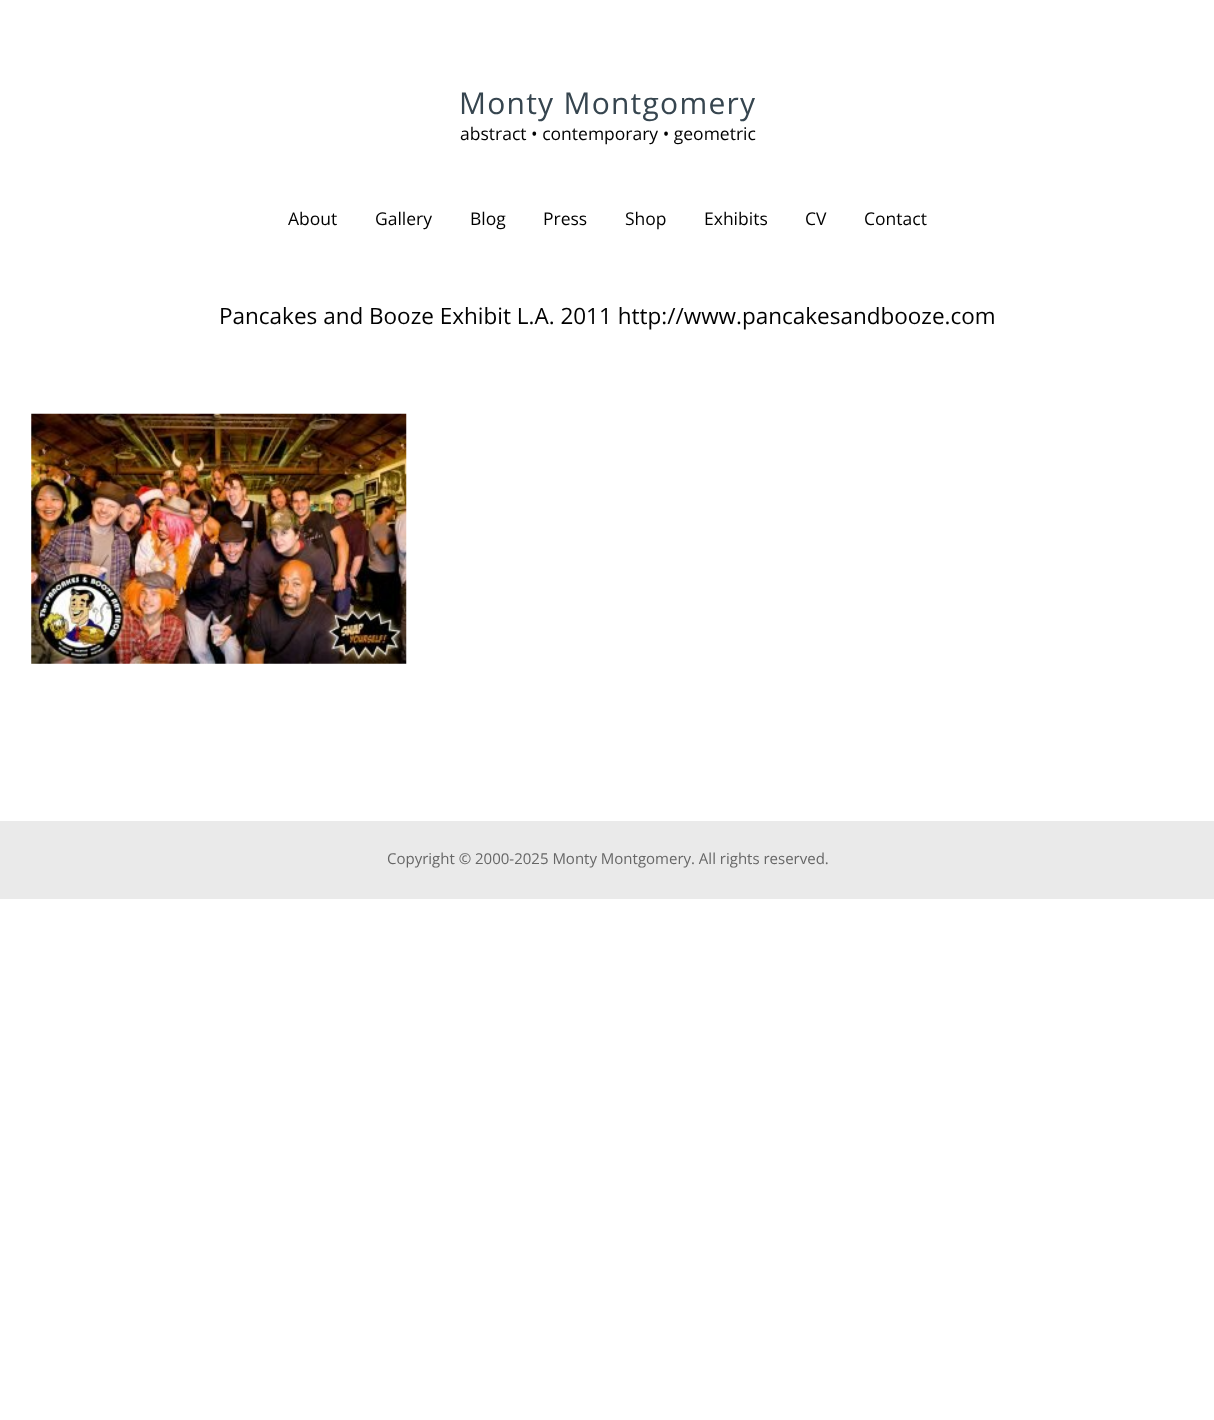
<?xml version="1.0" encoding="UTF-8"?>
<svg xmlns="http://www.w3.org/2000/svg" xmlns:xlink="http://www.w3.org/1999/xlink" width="1214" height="1420">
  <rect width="100%" height="100%" fill="#ffffff" />
  <image x="31" y="413" width="376" height="251" xlink:href="image1.png" />
  <rect y="821" width="1214" height="78" fill="#eaeaea" />
  <text x="459" y="114" style="font-family: Open Sans; font-size: 30px; letter-spacing: 1.25px; fill: #36454f">Monty Montgomery</text>
  <text x="460" y="140" style="font-family: Open Sans; font-size: 17.5px; fill: #000000">abstract • contemporary • geometric</text>
  <text x="288" y="225" style="font-family: Open Sans; font-size: 17.5px; fill: #000000">About</text>
  <text x="375" y="225" style="font-family: Open Sans; font-size: 17.5px; fill: #000000">Gallery</text>
  <text x="470" y="225" style="font-family: Open Sans; font-size: 17.5px; fill: #000000">Blog</text>
  <text x="543" y="225" style="font-family: Open Sans; font-size: 17.5px; fill: #000000">Press</text>
  <text x="625" y="225" style="font-family: Open Sans; font-size: 17.5px; fill: #000000">Shop</text>
  <text x="704" y="225" style="font-family: Open Sans; font-size: 17.5px; fill: #000000">Exhibits</text>
  <text x="805" y="225" style="font-family: Open Sans; font-size: 17.5px; fill: #000000">CV</text>
  <text x="864" y="225" style="font-family: Open Sans; font-size: 17.5px; fill: #000000">Contact</text>
  <text x="219" y="324" style="font-family: Open Sans; font-size: 22.5px; fill: #000000">Pancakes and Booze Exhibit L.A. 2011 http://www.pancakesandbooze.com</text>
  <text x="387" y="864" style="font-family: Open Sans; font-size: 15px; fill: #666666">Copyright © 2000-2025 Monty Montgomery. All rights reserved.</text>
</svg>
